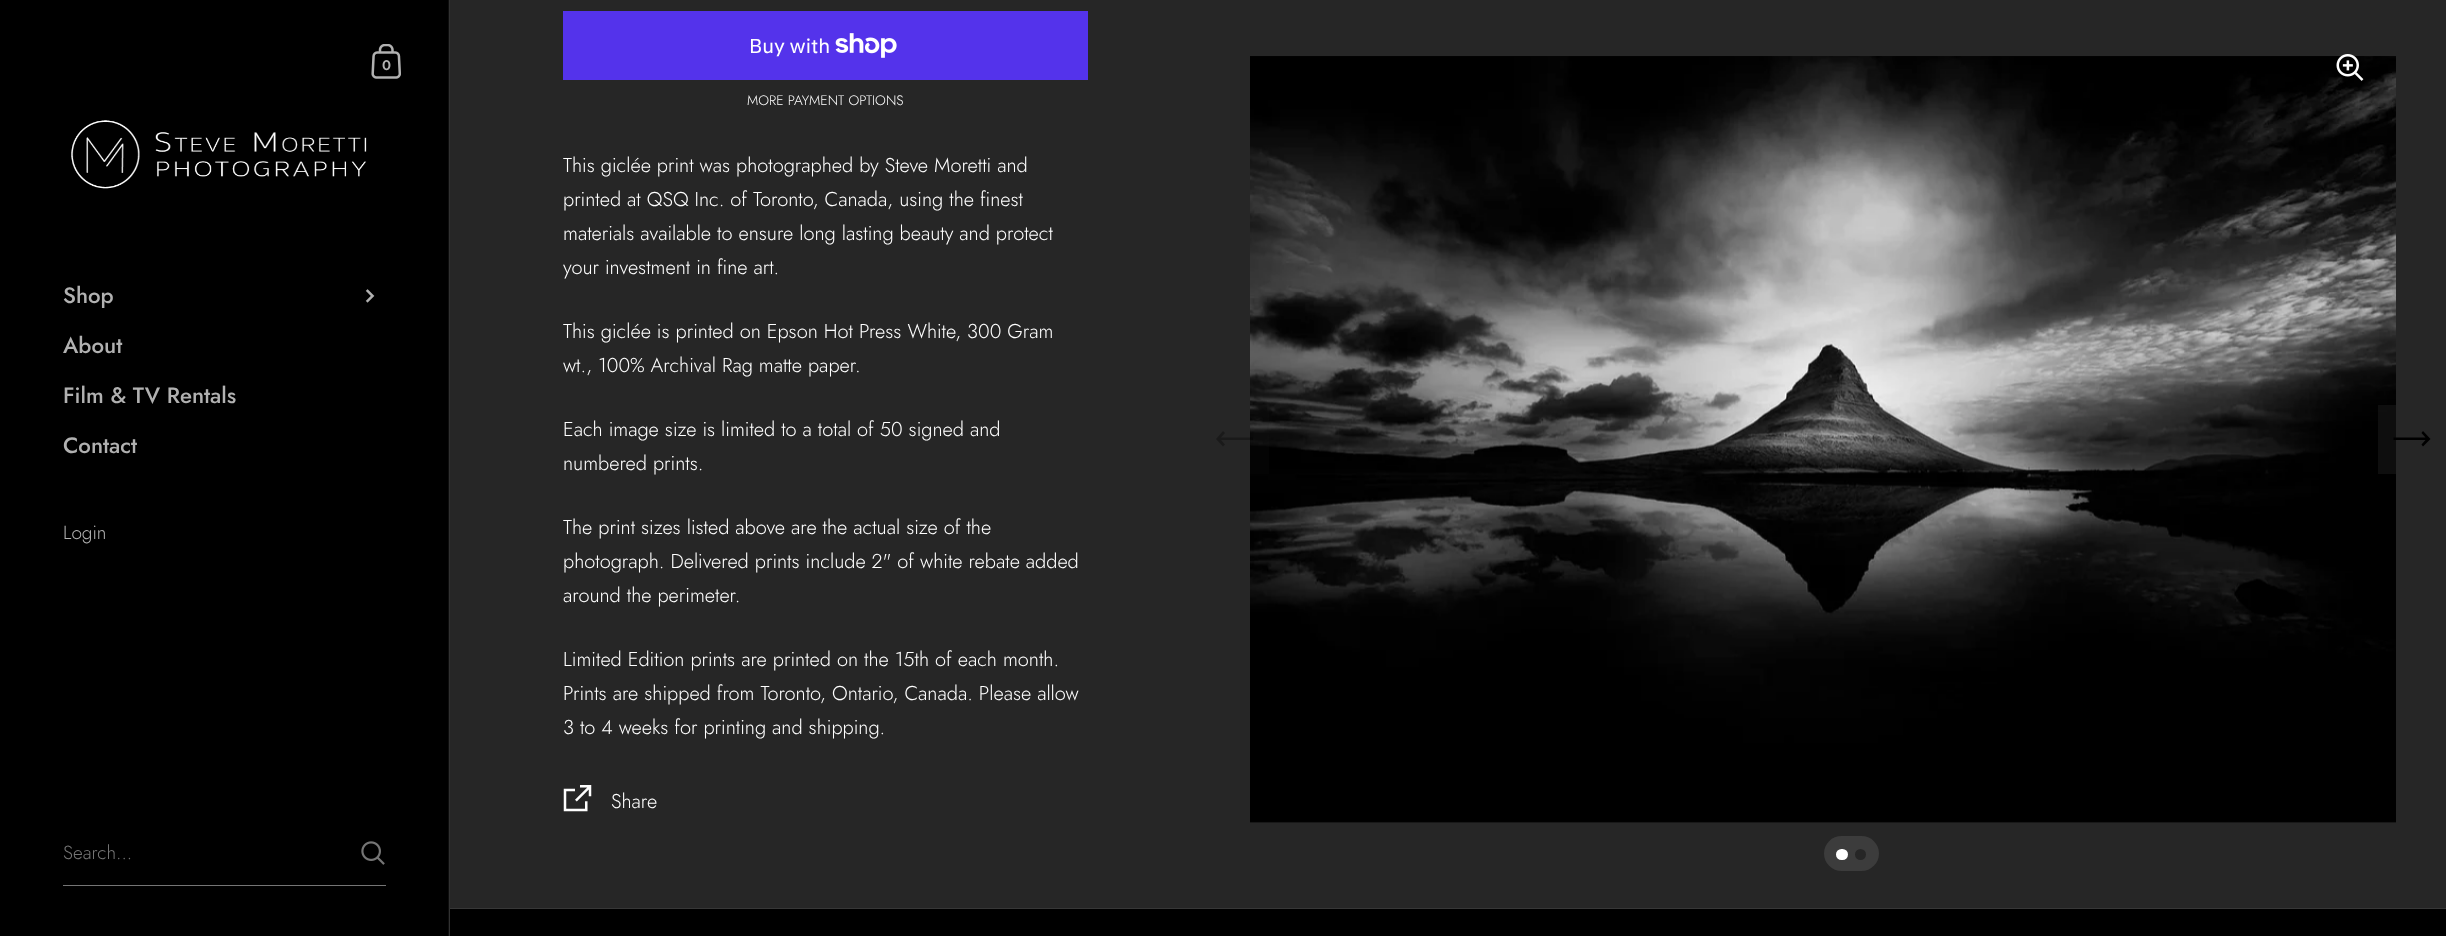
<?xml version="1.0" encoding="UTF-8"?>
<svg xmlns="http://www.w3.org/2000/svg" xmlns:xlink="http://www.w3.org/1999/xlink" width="2446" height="936">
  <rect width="100%" height="100%" fill="#262626" />
  <rect x="449" width="1" height="936" fill="#313131" />
  <rect width="448" height="936" fill="#000000" />
  <rect x="448" width="1" height="936" fill="#0e0e0e" />
  <image x="371" y="44" width="30" height="35" xlink:href="image1.png" />
  <image x="71" y="120" width="296" height="69" xlink:href="image2.png" />
  <image x="365" y="289" width="10" height="14" xlink:href="image3.png" />
  <rect x="63" y="885" width="323" height="1" fill="#757575" />
  <image x="361" y="841" width="24" height="24" xlink:href="image4.png" />
  <rect x="450" y="908" width="1996" height="1" fill="#373737" />
  <rect x="563" y="11" width="525" height="69" fill="#5433eb" />
  <image x="835" y="33" width="62" height="25" xlink:href="image5.png" />
  <image x="563" y="785" width="29" height="27" xlink:href="image6.png" />
  <image x="1250" y="56" width="1146" height="767" xlink:href="image8.png" />
  <image x="2336" y="54" width="28" height="27" xlink:href="image7.png" />
  <rect x="1250" y="405" width="19" height="69" fill="#262626" fill-opacity="0.11" />
  <path d="M 1223 446.5 l 2 -2 l -4 -4.5 h 32 v -2.5 h -32 l 4 -4.5 l -2 -2 l -7 8 z" fill="#000000" fill-opacity="0.3" />
  <rect x="2378" y="405" width="18" height="69" fill="#262626" fill-opacity="0.36" />
  <path d="M 2423 431 l -1.5 2 l 4 4.5 h -32 v 2.5 h 32 l -4 4.5 l 1.5 2 l 7.5 -7.5 z" fill="#000000" />
  <rect x="1824" y="836" width="55" height="35" rx="17.5" fill="#3c3c3c" />
  <rect x="1836" y="849" width="12" height="11" rx="5.5" fill="#ffffff" />
  <circle cx="1860.5" cy="854.5" r="5.5" fill="#262626" />
  <rect x="450" y="909" width="1996" height="27" fill="#000000" />
  <text x="382" y="70" style="font-family: Jost; font-size: 14px; font-weight: 600; fill: #b1b1b1">0</text>
  <text x="63" y="303" style="font-family: Jost; font-size: 22.25px; font-weight: 500; fill: #b1b1b1">Shop</text>
  <text x="63" y="353" style="font-family: Jost; font-size: 22.25px; font-weight: 500; fill: #b1b1b1">About</text>
  <text x="63" y="403" style="font-family: Jost; font-size: 22.25px; font-weight: 500; fill: #b1b1b1">Film &amp; TV Rentals</text>
  <text x="63" y="453" style="font-family: Jost; font-size: 22.25px; font-weight: 500; fill: #b1b1b1">Contact</text>
  <text x="63" y="539" style="font-family: Jost; font-size: 19px; font-weight: 300; fill: #b1b1b1">Login</text>
  <text x="63" y="859" style="font-family: Jost; font-size: 19px; font-weight: 300; fill: #757575">Search...</text>
  <text x="749" y="53" style="font-family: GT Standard; font-size: 20px; fill: #ffffff">Buy with</text>
  <text x="747" y="105" style="font-family: Jost; font-size: 13.75px; font-weight: 300; fill: #ffffff">MORE PAYMENT OPTIONS</text>
  <text x="563" y="172" style="font-family: Jost; font-size: 20px; font-weight: 300; fill: #ffffff">This giclée print was photographed by Steve Moretti and</text>
  <text x="563" y="206" style="font-family: Jost; font-size: 20px; font-weight: 300; fill: #ffffff">printed at QSQ Inc. of Toronto, Canada, using the finest</text>
  <text x="563" y="240" style="font-family: Jost; font-size: 20px; font-weight: 300; fill: #ffffff">materials available to ensure long lasting beauty and protect</text>
  <text x="563" y="274" style="font-family: Jost; font-size: 20px; font-weight: 300; fill: #ffffff">your investment in fine art.</text>
  <text x="563" y="338" style="font-family: Jost; font-size: 20px; font-weight: 300; fill: #ffffff">This giclée is printed on Epson Hot Press White, 300 Gram</text>
  <text x="563" y="372" style="font-family: Jost; font-size: 20px; font-weight: 300; fill: #ffffff">wt., 100% Archival Rag matte paper.</text>
  <text x="563" y="436" style="font-family: Jost; font-size: 20px; font-weight: 300; fill: #ffffff">Each image size is limited to a total of 50 signed and</text>
  <text x="563" y="470" style="font-family: Jost; font-size: 20px; font-weight: 300; fill: #ffffff">numbered prints.</text>
  <text x="563" y="534" style="font-family: Jost; font-size: 20px; font-weight: 300; fill: #ffffff">The print sizes listed above are the actual size of the</text>
  <text x="563" y="568" style="font-family: Jost; font-size: 20px; font-weight: 300; fill: #ffffff">photograph. Delivered prints include 2" of white rebate added</text>
  <text x="563" y="602" style="font-family: Jost; font-size: 20px; font-weight: 300; fill: #ffffff">around the perimeter.</text>
  <text x="563" y="666" style="font-family: Jost; font-size: 20px; font-weight: 300; fill: #ffffff">Limited Edition prints are printed on the 15th of each month.</text>
  <text x="563" y="700" style="font-family: Jost; font-size: 20px; font-weight: 300; fill: #ffffff">Prints are shipped from Toronto, Ontario, Canada. Please allow</text>
  <text x="563" y="734" style="font-family: Jost; font-size: 20px; font-weight: 300; fill: #ffffff">3 to 4 weeks for printing and shipping.</text>
  <text x="611" y="808" style="font-family: Jost; font-size: 20px; font-weight: 300; fill: #ffffff">Share</text>
</svg>
